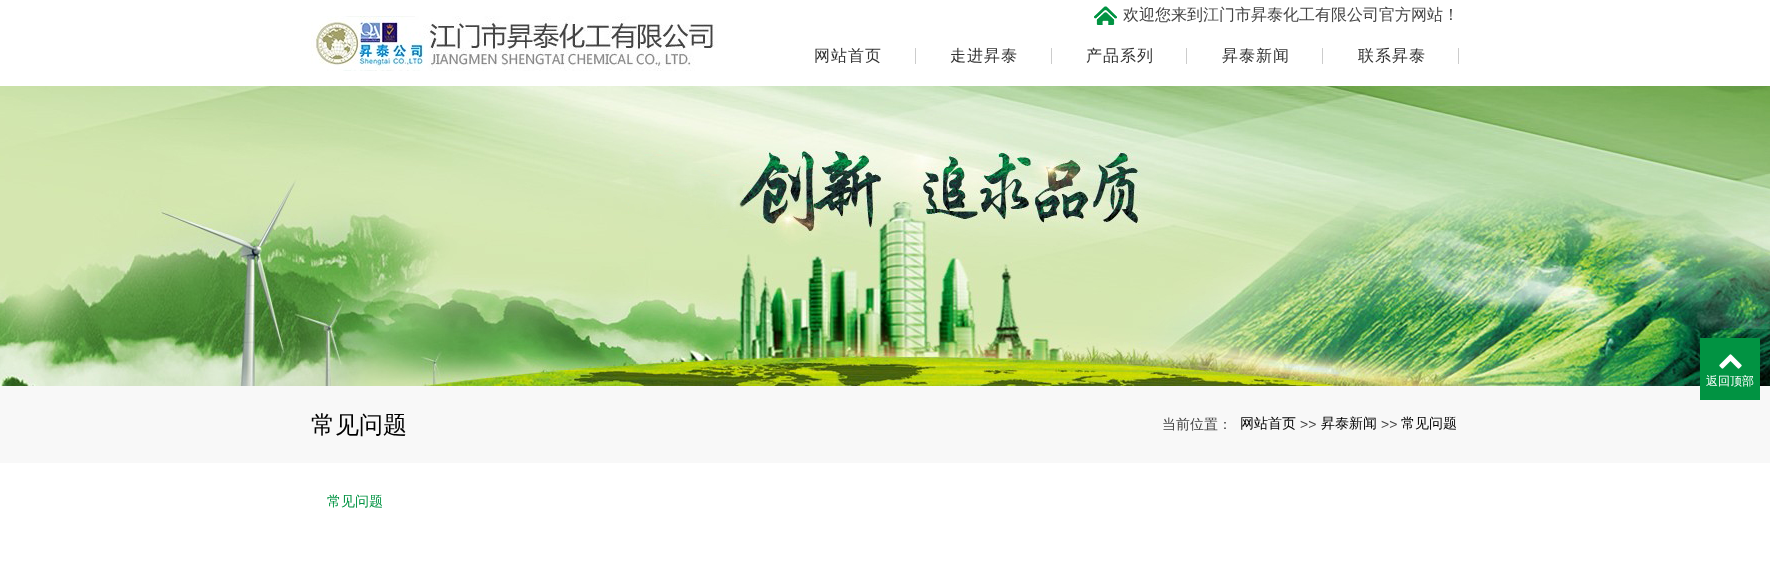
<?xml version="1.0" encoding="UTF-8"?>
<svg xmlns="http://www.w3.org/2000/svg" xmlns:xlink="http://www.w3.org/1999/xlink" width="1770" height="573">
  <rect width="100%" height="100%" fill="#ffffff" />
  <image x="311" y="16" width="407" height="55" xlink:href="image1.png" />
  <image x="1094" y="6" width="23" height="19" xlink:href="image2.png" />
  <rect x="915" y="48" width="1" height="16" fill="#cccccc" />
  <rect x="1051" y="48" width="1" height="16" fill="#cccccc" />
  <rect x="1186" y="48" width="1" height="16" fill="#cccccc" />
  <rect x="1322" y="48" width="1" height="16" fill="#cccccc" />
  <rect x="1458" y="48" width="1" height="16" fill="#cccccc" />
  <image x="0" y="86" width="1770" height="300" xlink:href="image3.png" />
  <rect y="386" width="1770" height="77" fill="#f8f8f8" />
  <rect x="1700" y="338" width="60" height="62" fill="#019342" />
  <image x="1719" y="354" width="23" height="15" xlink:href="image4.png" />
  <text x="1123" y="20" style="font-family: WenQuanYi Zen Hei; font-size: 16px; font-weight: 500; fill: #444444">欢迎您来到江门市昇泰化工有限公司官方网站！</text>
  <text x="814" y="61" style="font-family: WenQuanYi Zen Hei; font-size: 16px; font-weight: 500; letter-spacing: 1px; fill: #333333">网站首页</text>
  <text x="950" y="61" style="font-family: WenQuanYi Zen Hei; font-size: 16px; font-weight: 500; letter-spacing: 1px; fill: #333333">走进昇泰</text>
  <text x="1086" y="61" style="font-family: WenQuanYi Zen Hei; font-size: 16px; font-weight: 500; letter-spacing: 1px; fill: #333333">产品系列</text>
  <text x="1222" y="61" style="font-family: WenQuanYi Zen Hei; font-size: 16px; font-weight: 500; letter-spacing: 1px; fill: #333333">昇泰新闻</text>
  <text x="1358" y="61" style="font-family: WenQuanYi Zen Hei; font-size: 16px; font-weight: 500; letter-spacing: 1px; fill: #333333">联系昇泰</text>
  <text x="1706" y="385" style="font-family: WenQuanYi Zen Hei; font-size: 12px; font-weight: 500; fill: #ffffff">返回顶部</text>
  <text x="311" y="433" style="font-family: WenQuanYi Zen Hei; font-size: 24px; font-weight: 500; fill: #000000">常见问题</text>
  <text x="1162" y="429" style="font-family: WenQuanYi Zen Hei; font-size: 14px; font-weight: 500; fill: #444444">当前位置：</text>
  <text x="1240" y="428" style="font-family: WenQuanYi Zen Hei; font-size: 14px; font-weight: 500; fill: #000000">网站首页</text>
  <text x="1300" y="429" style="font-family: Liberation Sans; font-size: 14px; fill: #444444">&gt;&gt;</text>
  <text x="1321" y="428" style="font-family: WenQuanYi Zen Hei; font-size: 14px; font-weight: 500; fill: #000000">昇泰新闻</text>
  <text x="1381" y="429" style="font-family: Liberation Sans; font-size: 14px; fill: #444444">&gt;&gt;</text>
  <text x="1401" y="428" style="font-family: WenQuanYi Zen Hei; font-size: 14px; font-weight: 500; fill: #000000">常见问题</text>
  <text x="327" y="506" style="font-family: WenQuanYi Zen Hei; font-size: 14px; font-weight: 500; fill: #019342">常见问题</text>
</svg>
